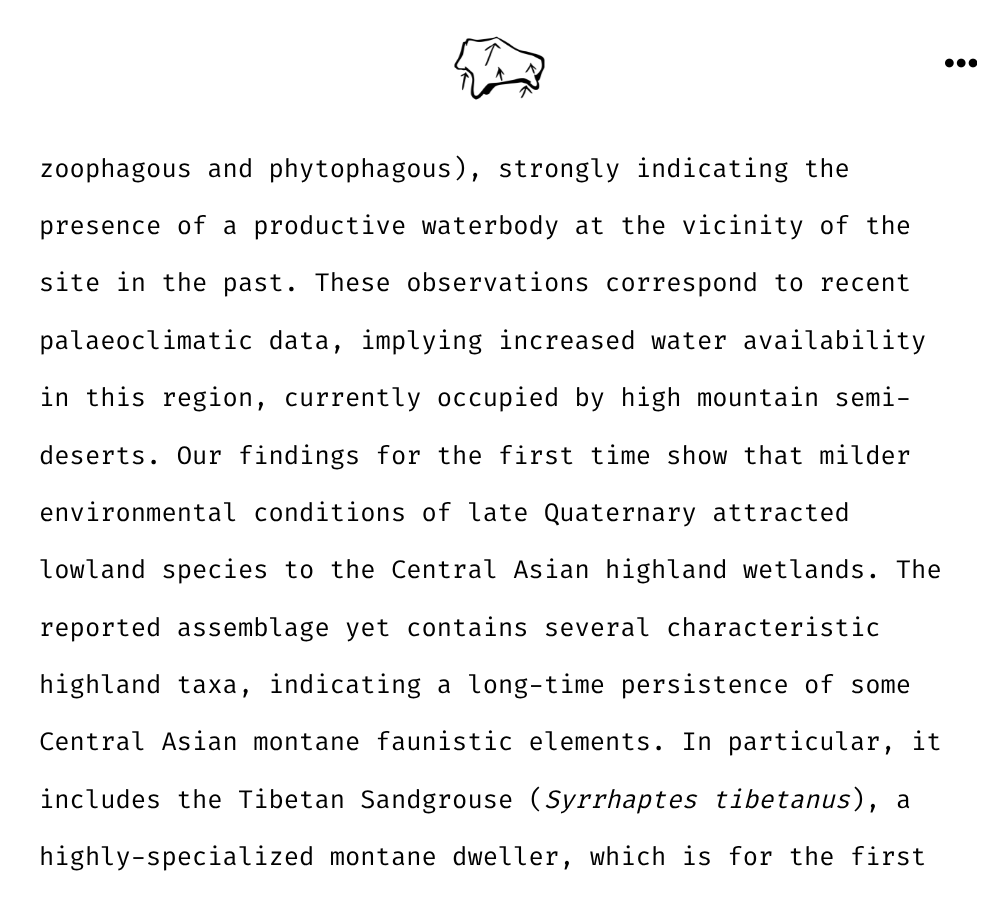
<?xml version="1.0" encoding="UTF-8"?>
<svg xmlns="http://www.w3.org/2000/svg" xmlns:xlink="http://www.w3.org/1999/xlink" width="990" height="909">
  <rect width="100%" height="100%" fill="#ffffff" />
  <image x="454" y="36" width="91" height="64" xlink:href="image1.png" />
  <image x="945" y="58" width="32" height="10" xlink:href="image2.png" />
  <text x="39" y="177" style="font-family: Fira Code; font-size: 25.5px; fill: #000000">zoophagous and phytophagous), strongly indicating the</text>
  <text x="39" y="234" style="font-family: Fira Code; font-size: 25.5px; fill: #000000">presence of a productive waterbody at the vicinity of the</text>
  <text x="39" y="291" style="font-family: Fira Code; font-size: 25.5px; fill: #000000">site in the past. These observations correspond to recent</text>
  <text x="39" y="349" style="font-family: Fira Code; font-size: 25.5px; fill: #000000">palaeoclimatic data, implying increased water availability</text>
  <text x="39" y="406" style="font-family: Fira Code; font-size: 25.5px; fill: #000000">in this region, currently occupied by high mountain semi-</text>
  <text x="39" y="464" style="font-family: Fira Code; font-size: 25.5px; fill: #000000">deserts. Our findings for the first time show that milder</text>
  <text x="39" y="521" style="font-family: Fira Code; font-size: 25.5px; fill: #000000">environmental conditions of late Quaternary attracted</text>
  <text x="39" y="578" style="font-family: Fira Code; font-size: 25.5px; fill: #000000">lowland species to the Central Asian highland wetlands. The</text>
  <text x="39" y="636" style="font-family: Fira Code; font-size: 25.5px; fill: #000000">reported assemblage yet contains several characteristic</text>
  <text x="39" y="693" style="font-family: Fira Code; font-size: 25.5px; fill: #000000">highland taxa, indicating a long-time persistence of some</text>
  <text x="39" y="750" style="font-family: Fira Code; font-size: 25.5px; fill: #000000">Central Asian montane faunistic elements. In particular, it</text>
  <text x="39" y="808" style="font-family: Fira Code; font-size: 25.5px; fill: #000000">includes the Tibetan Sandgrouse (</text>
  <text x="544" y="808" style="font-family: Fira Code; font-size: 25.5px; font-style: italic; fill: #000000">Syrrhaptes tibetanus</text>
  <text x="850" y="808" style="font-family: Fira Code; font-size: 25.5px; fill: #000000">), a</text>
  <text x="39" y="865" style="font-family: Fira Code; font-size: 25.5px; fill: #000000">highly-specialized montane dweller, which is for the first</text>
</svg>
